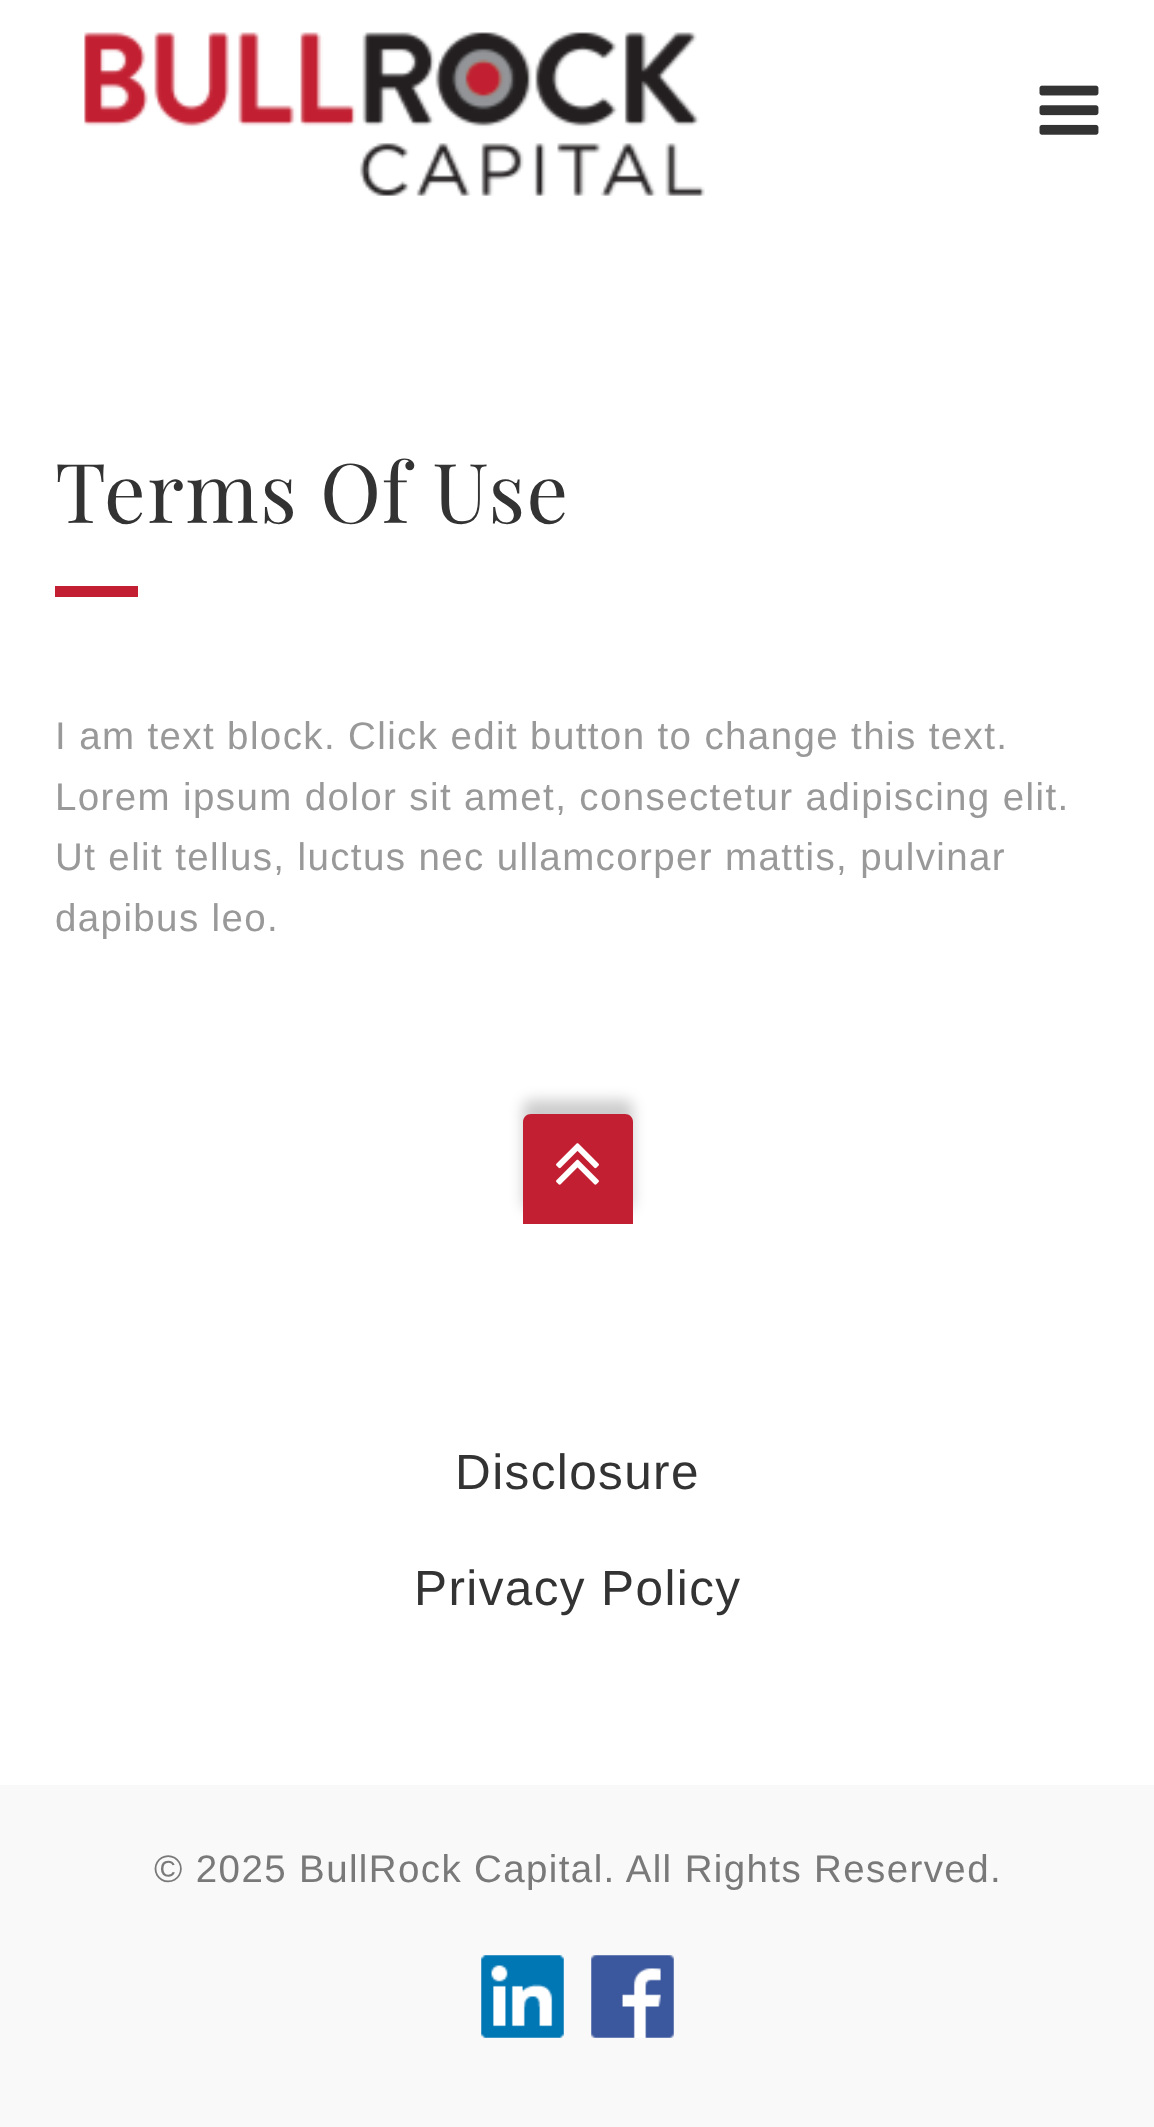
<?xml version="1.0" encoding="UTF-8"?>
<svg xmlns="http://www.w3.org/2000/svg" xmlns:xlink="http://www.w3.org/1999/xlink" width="1154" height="2127">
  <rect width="100%" height="100%" fill="#ffffff" />
  <image x="84" y="32" width="621" height="164" xlink:href="image1.png" />
  <image x="1039" y="85" width="60" height="50" xlink:href="image2.png" />
  <rect x="55" y="586" width="83" height="11" fill="#c22032" />
  <rect x="523" y="1100" width="110" height="110" rx="8" fill="#000000" fill-opacity="0.2" filter="blur(7px)" />
  <path d="M 531 1114 h 94 c 4.5 0 8 3.5 8 8 v 102 h -110 v -102 c 0 -4.5 3.5 -8 8 -8 z" fill="#c22032" />
  <image x="556" y="1143" width="43" height="42" xlink:href="image3.png" />
  <rect y="1785" width="1154" height="342" fill="#f9f9f9" />
  <image x="481" y="1955" width="83" height="83" xlink:href="image4.png" />
  <image x="591" y="1955" width="83" height="83" xlink:href="image5.png" />
  <text x="55" y="523" style="font-family: Playfair Display; font-size: 82.5px; letter-spacing: 1.38px; fill: #333333">Terms Of Use</text>
  <text x="55" y="749" style="font-family: Liberation Sans; font-size: 38.5px; letter-spacing: 1.38px; fill: #999999">I am text block. Click edit button to change this text.</text>
  <text x="55" y="810" style="font-family: Liberation Sans; font-size: 38.5px; letter-spacing: 1.38px; fill: #999999">Lorem ipsum dolor sit amet, consectetur adipiscing elit.</text>
  <text x="55" y="870" style="font-family: Liberation Sans; font-size: 38.5px; letter-spacing: 1.38px; fill: #999999">Ut elit tellus, luctus nec ullamcorper mattis, pulvinar</text>
  <text x="55" y="931" style="font-family: Liberation Sans; font-size: 38.5px; letter-spacing: 1.38px; fill: #999999">dapibus leo.</text>
  <text x="455" y="1489" style="font-family: Liberation Sans; font-size: 49.5px; letter-spacing: 1.38px; fill: #333333">Disclosure</text>
  <text x="414" y="1605" style="font-family: Liberation Sans; font-size: 49.5px; letter-spacing: 1.38px; fill: #333333">Privacy Policy</text>
  <text x="154" y="1882" style="font-family: Liberation Sans; font-size: 38.5px; letter-spacing: 1.38px; fill: #797979">© 2025 BullRock Capital. All Rights Reserved.</text>
</svg>
